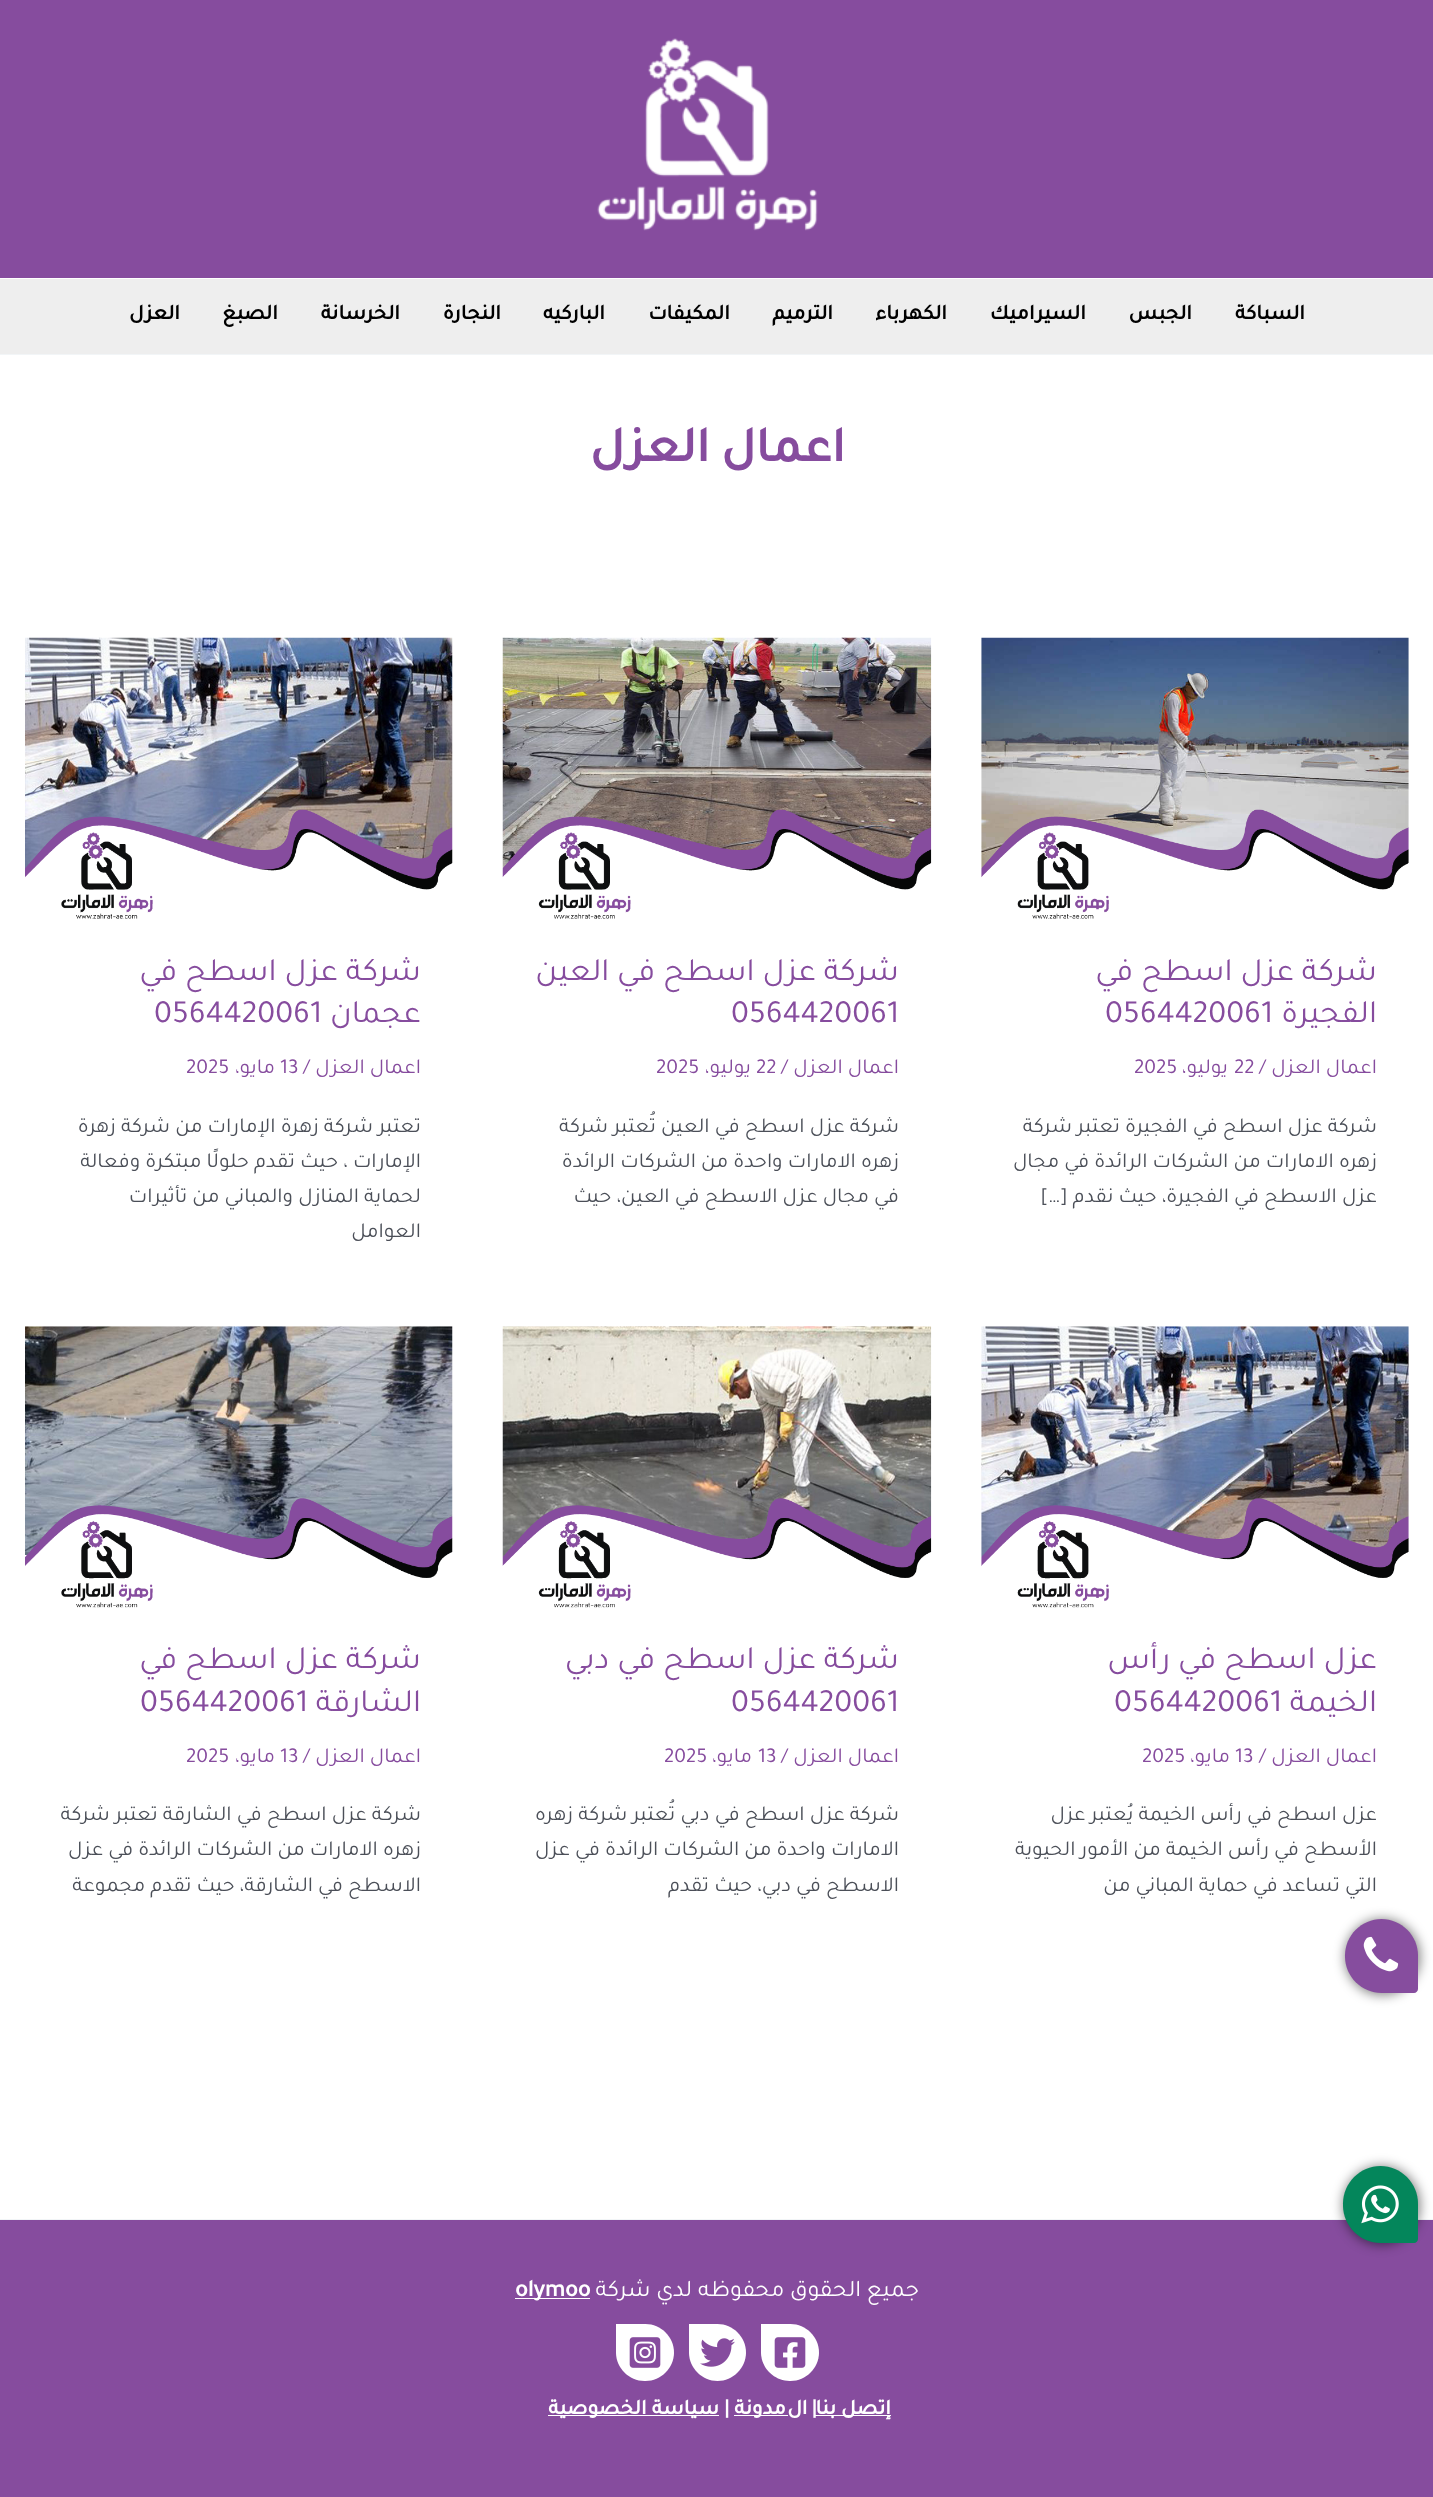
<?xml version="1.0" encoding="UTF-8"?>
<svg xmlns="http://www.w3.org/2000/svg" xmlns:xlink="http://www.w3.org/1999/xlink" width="1433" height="2497">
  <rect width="100%" height="100%" fill="#ffffff" />
  <rect width="1433" height="278" fill="#864c9e" />
  <image x="597" y="38" width="221" height="193" xlink:href="image1.png" />
  <rect y="279" width="1433" height="75" fill="#eeeeee" />
  <rect y="354" width="1433" height="1" fill="#f2f5f7" />
  <image x="981" y="637" width="428" height="282" xlink:href="image2.png" />
  <image x="502" y="637" width="430" height="282" xlink:href="image3.png" />
  <image x="25" y="637" width="428" height="282" xlink:href="image4.png" />
  <image x="981" y="1326" width="428" height="282" xlink:href="image5.png" />
  <image x="502" y="1326" width="430" height="282" xlink:href="image6.png" />
  <image x="25" y="1326" width="428" height="282" xlink:href="image7.png" />
  <rect y="2220" width="1433" height="277" fill="#864c9e" />
  <rect y="2219" width="1433" height="1" fill="#f2f5f7" />
  <rect x="1345" y="1919" width="75" height="76" rx="37.5" fill="#000000" fill-opacity="0.5" filter="blur(6px)" />
  <path d="M 1381.5 1919 c 20 0 36.5 16.5 36.5 36.5 v 33.5 c 0 2 -2 4 -4 4 h -32.5 c -20 0 -36.5 -16.5 -36.5 -36.5 v -1 c 0 -20 16.5 -36.5 36.5 -36.5 z" fill="#864d9e" />
  <image x="1363" y="1936" width="36" height="36" xlink:href="image8.png" />
  <rect x="1343" y="2166" width="77" height="79" rx="38.5" fill="#000000" fill-opacity="0.5" filter="blur(6px)" />
  <path d="M 1380.5 2166 c 20.5 0 37.5 17 37.5 37.5 v 35.5 c 0 2 -2 4 -4 4 h -33.5 c -20.5 0 -37.5 -17 -37.5 -37.5 v -2 c 0 -20.5 17 -37.5 37.5 -37.5 z" fill="#04865b" />
  <image x="1361" y="2185" width="38" height="39" xlink:href="image9.png" />
  <rect x="515" y="2298" width="75" height="1" fill="#ffffff" />
  <path d="M 761.5 2324 h 29 c 15.5 0 28.5 13 28.5 28.5 c 0 15.5 -13 28.5 -28.5 28.5 h -1 c -15.5 0 -28.5 -13 -28.5 -28.5 v -28 c 0 -0.5 0 -0.5 0.5 -0.5 z" fill="#ffffff" />
  <image x="774" y="2337" width="32" height="31" xlink:href="image10.png" />
  <path d="M 689.5 2324 h 28 c 15.5 0 28.5 13 28.5 28.5 c 0 15.5 -13 28.5 -28.5 28.5 c -15.5 0 -28.5 -13 -28.5 -28.5 v -28 c 0 -0.5 0 -0.5 0.5 -0.5 z" fill="#ffffff" />
  <image x="700" y="2338" width="35" height="29" xlink:href="image11.png" />
  <path d="M 616.5 2324 h 29 c 15.5 0 28.5 13 28.5 28.5 c 0 15.5 -13 28.5 -28.5 28.5 h -1 c -15.5 0 -28.5 -13 -28.5 -28.5 v -28 c 0 -0.5 0 -0.5 0.5 -0.5 z" fill="#ffffff" />
  <image x="629" y="2337" width="32" height="31" xlink:href="image12.png" />
  <rect x="815" y="2415" width="76" height="1" fill="#ffffff" />
  <rect x="734" y="2415" width="54" height="1" fill="#ffffff" />
  <rect x="548" y="2415" width="171" height="1" fill="#ffffff" />
  <text x="1305" y="319" style="font-family: Tajawal; font-size: 21.25px; font-weight: bold; direction: rtl; fill: #000000">السباكة</text>
  <text x="1192" y="319" style="font-family: Tajawal; font-size: 21.25px; font-weight: bold; direction: rtl; fill: #000000">الجبس</text>
  <text x="1086" y="319" style="font-family: Tajawal; font-size: 21.25px; font-weight: bold; direction: rtl; fill: #000000">السيراميك</text>
  <text x="947" y="319" style="font-family: Tajawal; font-size: 21.25px; font-weight: bold; direction: rtl; fill: #000000">الكهرباء</text>
  <text x="833" y="319" style="font-family: Tajawal; font-size: 21.25px; font-weight: bold; direction: rtl; fill: #000000">الترميم</text>
  <text x="730" y="319" style="font-family: Tajawal; font-size: 21.25px; font-weight: bold; direction: rtl; fill: #000000">المكيفات</text>
  <text x="605" y="319" style="font-family: Tajawal; font-size: 21.25px; font-weight: bold; direction: rtl; fill: #000000">الباركيه</text>
  <text x="501" y="319" style="font-family: Tajawal; font-size: 21.25px; font-weight: bold; direction: rtl; fill: #000000">النجارة</text>
  <text x="400" y="319" style="font-family: Tajawal; font-size: 21.25px; font-weight: bold; direction: rtl; fill: #000000">الخرسانة</text>
  <text x="278" y="319" style="font-family: Tajawal; font-size: 21.25px; font-weight: bold; direction: rtl; fill: #000000">الصبغ</text>
  <text x="180" y="319" style="font-family: Tajawal; font-size: 21.25px; font-weight: bold; direction: rtl; fill: #000000">العزل</text>
  <text x="845" y="461" style="font-family: Tajawal; font-size: 50px; font-weight: bold; direction: rtl; fill: #864c9e">اعمال العزل</text>
  <text x="1377" y="980" style="font-family: Tajawal; font-size: 32.5px; direction: rtl; fill: #864c9e">شركة عزل اسطح في</text>
  <text x="1377" y="1022" style="font-family: Tajawal; font-size: 32.5px; direction: rtl; fill: #864c9e">الفجيرة</text>
  <text x="1105" y="1022" style="font-family: Tajawal; font-size: 32.5px; fill: #864c9e">0564420061</text>
  <text x="1377" y="1073" style="font-family: Tajawal; font-size: 21.25px; direction: rtl; fill: #864c9e">اعمال العزل</text>
  <text x="1259" y="1073" style="font-family: Tajawal; font-size: 21.25px; fill: #864c9e">/</text>
  <text x="1234" y="1073" style="font-family: Tajawal; font-size: 21.25px; fill: #864c9e">22</text>
  <text x="1228" y="1073" style="font-family: Tajawal; font-size: 21.25px; direction: rtl; fill: #864c9e">يوليو،</text>
  <text x="1134" y="1073" style="font-family: Tajawal; font-size: 21.25px; fill: #864c9e">2025</text>
  <text x="1377" y="1132" style="font-family: Tajawal; font-size: 21.25px; direction: rtl; fill: #4b4f58">شركة عزل اسطح في الفجيرة تعتبر شركة</text>
  <text x="1377" y="1167" style="font-family: Tajawal; font-size: 21.25px; direction: rtl; fill: #4b4f58">زهره الامارات من الشركات الرائدة في مجال</text>
  <text x="1377" y="1202" style="font-family: Tajawal; font-size: 21.25px; direction: rtl; fill: #4b4f58">عزل الاسطح في الفجيرة، حيث نقدم […]</text>
  <text x="899" y="980" style="font-family: Tajawal; font-size: 32.5px; direction: rtl; fill: #864c9e">شركة عزل اسطح في العين</text>
  <text x="731" y="1022" style="font-family: Tajawal; font-size: 32.5px; fill: #864c9e">0564420061</text>
  <text x="899" y="1073" style="font-family: Tajawal; font-size: 21.25px; direction: rtl; fill: #864c9e">اعمال العزل</text>
  <text x="781" y="1073" style="font-family: Tajawal; font-size: 21.25px; fill: #864c9e">/</text>
  <text x="756" y="1073" style="font-family: Tajawal; font-size: 21.25px; fill: #864c9e">22</text>
  <text x="751" y="1073" style="font-family: Tajawal; font-size: 21.25px; direction: rtl; fill: #864c9e">يوليو،</text>
  <text x="656" y="1073" style="font-family: Tajawal; font-size: 21.25px; fill: #864c9e">2025</text>
  <text x="899" y="1132" style="font-family: Tajawal; font-size: 21.25px; direction: rtl; fill: #4b4f58">شركة عزل اسطح في العين تُعتبر شركة</text>
  <text x="899" y="1167" style="font-family: Tajawal; font-size: 21.25px; direction: rtl; fill: #4b4f58">زهره الامارات واحدة من الشركات الرائدة</text>
  <text x="899" y="1202" style="font-family: Tajawal; font-size: 21.25px; direction: rtl; fill: #4b4f58">في مجال عزل الاسطح في العين، حيث</text>
  <text x="421" y="980" style="font-family: Tajawal; font-size: 32.5px; direction: rtl; fill: #864c9e">شركة عزل اسطح في</text>
  <text x="421" y="1022" style="font-family: Tajawal; font-size: 32.5px; direction: rtl; fill: #864c9e">عجمان</text>
  <text x="154" y="1022" style="font-family: Tajawal; font-size: 32.5px; fill: #864c9e">0564420061</text>
  <text x="421" y="1073" style="font-family: Tajawal; font-size: 21.25px; direction: rtl; fill: #864c9e">اعمال العزل</text>
  <text x="303" y="1073" style="font-family: Tajawal; font-size: 21.25px; fill: #864c9e">/</text>
  <text x="280" y="1073" style="font-family: Tajawal; font-size: 21.25px; fill: #864c9e">13</text>
  <text x="275" y="1073" style="font-family: Tajawal; font-size: 21.25px; direction: rtl; fill: #864c9e">مايو،</text>
  <text x="186" y="1073" style="font-family: Tajawal; font-size: 21.25px; fill: #864c9e">2025</text>
  <text x="421" y="1132" style="font-family: Tajawal; font-size: 21.25px; direction: rtl; fill: #4b4f58">تعتبر شركة زهرة الإمارات من شركة زهرة</text>
  <text x="421" y="1167" style="font-family: Tajawal; font-size: 21.25px; direction: rtl; fill: #4b4f58">الإمارات ، حيث تقدم حلولًا مبتكرة وفعالة</text>
  <text x="421" y="1202" style="font-family: Tajawal; font-size: 21.25px; direction: rtl; fill: #4b4f58">لحماية المنازل والمباني من تأثيرات</text>
  <text x="421" y="1237" style="font-family: Tajawal; font-size: 21.25px; direction: rtl; fill: #4b4f58">العوامل</text>
  <text x="1377" y="1668" style="font-family: Tajawal; font-size: 32.5px; direction: rtl; fill: #864c9e">عزل اسطح في رأس</text>
  <text x="1377" y="1711" style="font-family: Tajawal; font-size: 32.5px; direction: rtl; fill: #864c9e">الخيمة</text>
  <text x="1114" y="1711" style="font-family: Tajawal; font-size: 32.5px; fill: #864c9e">0564420061</text>
  <text x="1377" y="1762" style="font-family: Tajawal; font-size: 21.25px; direction: rtl; fill: #864c9e">اعمال العزل</text>
  <text x="1259" y="1762" style="font-family: Tajawal; font-size: 21.25px; fill: #864c9e">/</text>
  <text x="1235" y="1762" style="font-family: Tajawal; font-size: 21.25px; fill: #864c9e">13</text>
  <text x="1230" y="1762" style="font-family: Tajawal; font-size: 21.25px; direction: rtl; fill: #864c9e">مايو،</text>
  <text x="1142" y="1762" style="font-family: Tajawal; font-size: 21.25px; fill: #864c9e">2025</text>
  <text x="1377" y="1820" style="font-family: Tajawal; font-size: 21.25px; direction: rtl; fill: #4b4f58">عزل اسطح في رأس الخيمة يُعتبر عزل</text>
  <text x="1377" y="1855" style="font-family: Tajawal; font-size: 21.25px; direction: rtl; fill: #4b4f58">الأسطح في رأس الخيمة من الأمور الحيوية</text>
  <text x="1377" y="1891" style="font-family: Tajawal; font-size: 21.25px; direction: rtl; fill: #4b4f58">التي تساعد في حماية المباني من</text>
  <text x="899" y="1668" style="font-family: Tajawal; font-size: 32.5px; direction: rtl; fill: #864c9e">شركة عزل اسطح في دبي</text>
  <text x="731" y="1711" style="font-family: Tajawal; font-size: 32.5px; fill: #864c9e">0564420061</text>
  <text x="899" y="1762" style="font-family: Tajawal; font-size: 21.25px; direction: rtl; fill: #864c9e">اعمال العزل</text>
  <text x="781" y="1762" style="font-family: Tajawal; font-size: 21.25px; fill: #864c9e">/</text>
  <text x="758" y="1762" style="font-family: Tajawal; font-size: 21.25px; fill: #864c9e">13</text>
  <text x="752" y="1762" style="font-family: Tajawal; font-size: 21.25px; direction: rtl; fill: #864c9e">مايو،</text>
  <text x="664" y="1762" style="font-family: Tajawal; font-size: 21.25px; fill: #864c9e">2025</text>
  <text x="899" y="1820" style="font-family: Tajawal; font-size: 21.25px; direction: rtl; fill: #4b4f58">شركة عزل اسطح في دبي تُعتبر شركة زهره</text>
  <text x="899" y="1855" style="font-family: Tajawal; font-size: 21.25px; direction: rtl; fill: #4b4f58">الامارات واحدة من الشركات الرائدة في عزل</text>
  <text x="899" y="1891" style="font-family: Tajawal; font-size: 21.25px; direction: rtl; fill: #4b4f58">الاسطح في دبي، حيث تقدم</text>
  <text x="421" y="1668" style="font-family: Tajawal; font-size: 32.5px; direction: rtl; fill: #864c9e">شركة عزل اسطح في</text>
  <text x="421" y="1711" style="font-family: Tajawal; font-size: 32.5px; direction: rtl; fill: #864c9e">الشارقة</text>
  <text x="140" y="1711" style="font-family: Tajawal; font-size: 32.5px; fill: #864c9e">0564420061</text>
  <text x="421" y="1762" style="font-family: Tajawal; font-size: 21.25px; direction: rtl; fill: #864c9e">اعمال العزل</text>
  <text x="303" y="1762" style="font-family: Tajawal; font-size: 21.25px; fill: #864c9e">/</text>
  <text x="280" y="1762" style="font-family: Tajawal; font-size: 21.25px; fill: #864c9e">13</text>
  <text x="275" y="1762" style="font-family: Tajawal; font-size: 21.25px; direction: rtl; fill: #864c9e">مايو،</text>
  <text x="186" y="1762" style="font-family: Tajawal; font-size: 21.25px; fill: #864c9e">2025</text>
  <text x="421" y="1820" style="font-family: Tajawal; font-size: 21.25px; direction: rtl; fill: #4b4f58">شركة عزل اسطح في الشارقة تعتبر شركة</text>
  <text x="421" y="1855" style="font-family: Tajawal; font-size: 21.25px; direction: rtl; fill: #4b4f58">زهره الامارات من الشركات الرائدة في عزل</text>
  <text x="421" y="1891" style="font-family: Tajawal; font-size: 21.25px; direction: rtl; fill: #4b4f58">الاسطح في الشارقة، حيث تقدم مجموعة</text>
  <text x="919" y="2296" style="font-family: Tajawal; font-size: 23.75px; direction: rtl; fill: #ffffff">جميع الحقوق محفوظه لدي شركة</text>
  <text x="515" y="2296" style="font-family: Tajawal; font-size: 23.75px; font-weight: bold; fill: #ffffff">olymoo</text>
  <text x="891" y="2414" style="font-family: Tajawal; font-size: 21.25px; font-weight: bold; direction: rtl; fill: #ffffff">إتصل بنا</text>
  <text x="817" y="2414" word-spacing="-1" style="font-family: Tajawal; font-size: 21.25px; font-weight: bold; direction: rtl; fill: #ffffff">| ال</text>
  <text x="786" y="2414" style="font-family: Tajawal; font-size: 21.25px; font-weight: bold; direction: rtl; fill: #ffffff">مدونة</text>
  <text x="724" y="2414" style="font-family: Tajawal; font-size: 21.25px; font-weight: bold; fill: #ffffff">|</text>
  <text x="719" y="2414" style="font-family: Tajawal; font-size: 21.25px; font-weight: bold; direction: rtl; fill: #ffffff">سياسة الخصوصية</text>
</svg>
